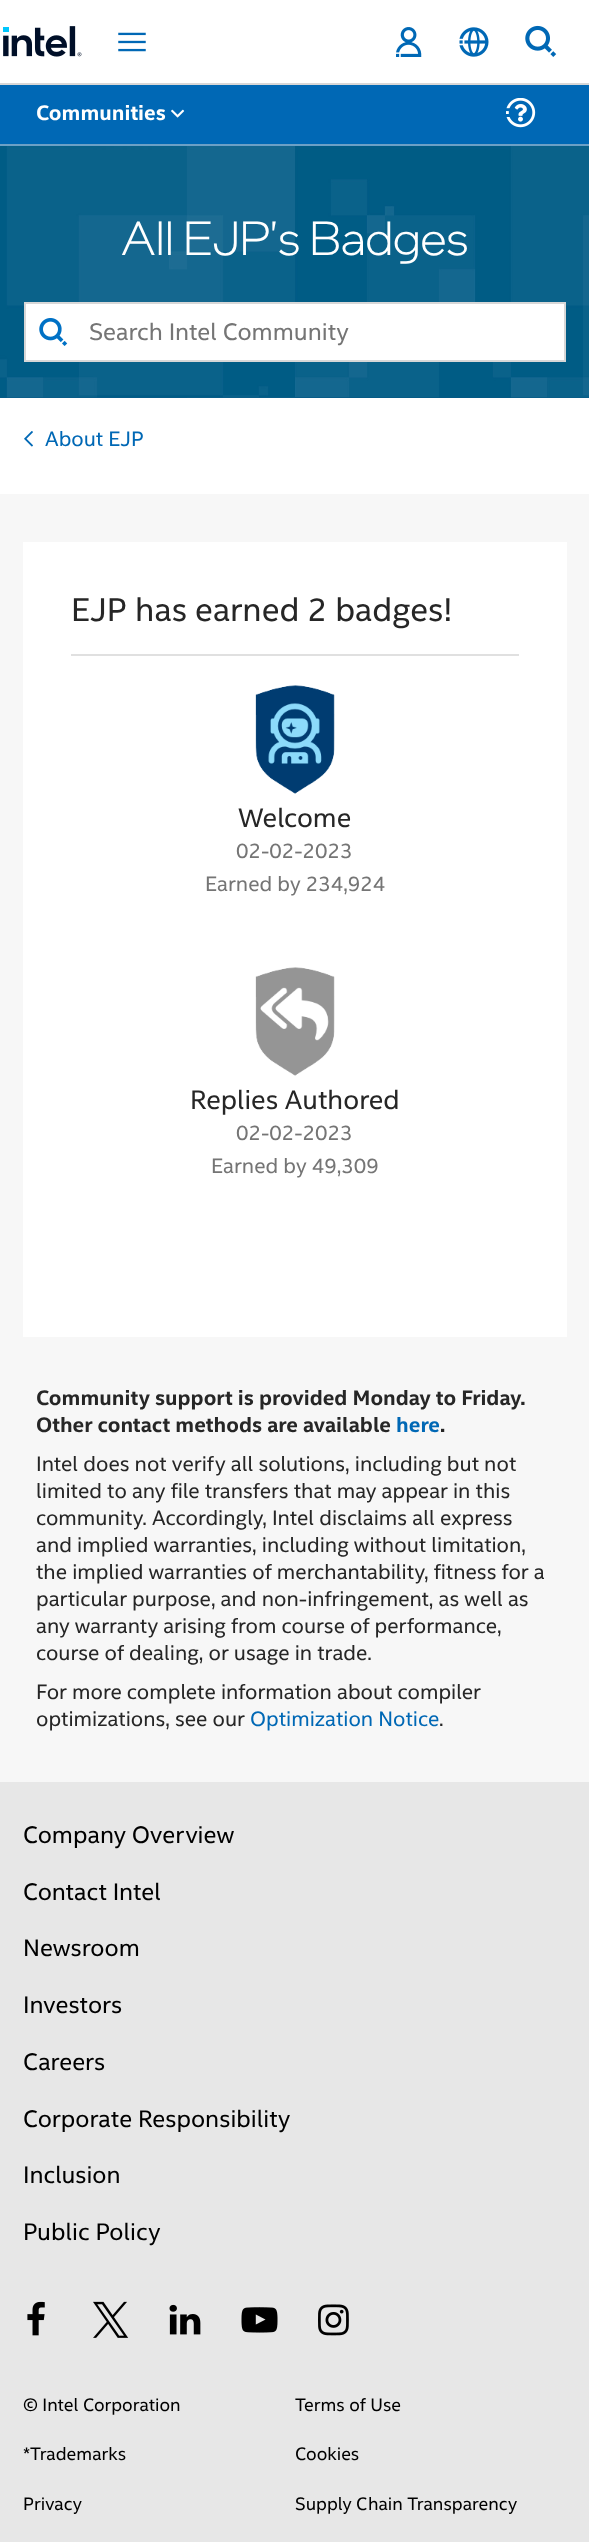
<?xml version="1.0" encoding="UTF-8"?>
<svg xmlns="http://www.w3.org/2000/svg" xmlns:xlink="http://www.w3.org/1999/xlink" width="589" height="2542">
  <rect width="100%" height="100%" fill="#f7f7f7" />
  <rect width="589" height="83" fill="#ffffff" />
  <rect y="83" width="589" height="2" fill="#d7d7d7" />
  <image x="3" y="26" width="79" height="31" xlink:href="image1.png" />
  <image x="118" y="32" width="28" height="20" xlink:href="image2.png" />
  <image x="396" y="27" width="26" height="30" xlink:href="image3.png" />
  <image x="459" y="27" width="30" height="30" xlink:href="image4.png" />
  <image x="525" y="25" width="32" height="32" xlink:href="image5.png" />
  <rect y="398" width="589" height="96" fill="#ffffff" />
  <rect y="85" width="589" height="59" fill="#0068b5" />
  <image x="171" y="109" width="14" height="9" xlink:href="image6.png" />
  <image x="506" y="98" width="30" height="30" xlink:href="image7.png" />
  <rect y="397" width="589" height="1" fill="#005b85" />
  <image x="0" y="146" width="589" height="252" xlink:href="image8.png" />
  <rect y="144" width="589" height="2" fill="#6ca0c6" />
  <rect x="25" y="303" width="540" height="58" fill="#ffffff" stroke="#d7d7d7" stroke-width="2" />
  <image x="39" y="318" width="29" height="28" xlink:href="image9.png" />
  <image x="24" y="431" width="9" height="16" xlink:href="image10.png" />
  <rect x="23" y="542" width="544" height="795" fill="#ffffff" />
  <rect x="71" y="654" width="448" height="2" fill="#e0e0e0" />
  <image x="255" y="685" width="80" height="109" xlink:href="image11.png" />
  <image x="255" y="967" width="80" height="109" xlink:href="image12.png" />
  <rect y="1782" width="589" height="760" fill="#e7e7e7" />
  <image x="27" y="2301" width="18" height="35" xlink:href="image13.png" />
  <image x="93" y="2301" width="36" height="37" xlink:href="image14.png" />
  <image x="169" y="2304" width="32" height="31" xlink:href="image15.png" />
  <image x="241" y="2307" width="37" height="26" xlink:href="image16.png" />
  <image x="318" y="2304" width="31" height="32" xlink:href="image17.png" />
  <text x="36" y="120" style="font-family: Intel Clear; font-size: 21px; font-weight: bold; fill: #ffffff">Communities</text>
  <text x="121" y="255" style="font-family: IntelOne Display; font-size: 48px; font-weight: 300; fill: #ffffff">All EJP's Badges</text>
  <text x="89" y="340" style="font-family: Intel Clear; font-size: 24px; fill: #757575">Search Intel Community</text>
  <text x="45" y="446" style="font-family: Intel Clear; font-size: 21px; fill: #0068b5">About EJP</text>
  <text x="71" y="621" style="font-family: Intel Clear; font-size: 33px; fill: #262626">EJP has earned 2 badges!</text>
  <text x="238" y="827" style="font-family: Intel Clear; font-size: 27px; fill: #262626">Welcome</text>
  <text x="236" y="858" style="font-family: Intel Clear; font-size: 21px; fill: #757575">02-02-2023</text>
  <text x="205" y="891" style="font-family: Intel Clear; font-size: 21px; fill: #757575">Earned by 234,924</text>
  <text x="190" y="1109" style="font-family: Intel Clear; font-size: 27px; fill: #262626">Replies Authored</text>
  <text x="236" y="1140" style="font-family: Intel Clear; font-size: 21px; fill: #757575">02-02-2023</text>
  <text x="211" y="1173" style="font-family: Intel Clear; font-size: 21px; fill: #757575">Earned by 49,309</text>
  <text x="36" y="1405" style="font-family: Intel Clear; font-size: 21px; font-weight: bold; fill: #262626">Community support is provided Monday to Friday.</text>
  <text x="36" y="1432" style="font-family: Intel Clear; font-size: 21px; font-weight: bold; fill: #262626">Other contact methods are available</text>
  <text x="396" y="1432" style="font-family: Intel Clear; font-size: 21px; font-weight: bold; fill: #0068b5">here</text>
  <text x="440" y="1432" style="font-family: Intel Clear; font-size: 21px; font-weight: bold; fill: #262626">.</text>
  <text x="36" y="1471" style="font-family: Intel Clear; font-size: 21px; fill: #262626">Intel does not verify all solutions, including but not</text>
  <text x="36" y="1498" style="font-family: Intel Clear; font-size: 21px; fill: #262626">limited to any file transfers that may appear in this</text>
  <text x="36" y="1525" style="font-family: Intel Clear; font-size: 21px; fill: #262626">community. Accordingly, Intel disclaims all express</text>
  <text x="36" y="1552" style="font-family: Intel Clear; font-size: 21px; fill: #262626">and implied warranties, including without limitation,</text>
  <text x="36" y="1579" style="font-family: Intel Clear; font-size: 21px; fill: #262626">the implied warranties of merchantability, fitness for a</text>
  <text x="36" y="1606" style="font-family: Intel Clear; font-size: 21px; fill: #262626">particular purpose, and non-infringement, as well as</text>
  <text x="36" y="1633" style="font-family: Intel Clear; font-size: 21px; fill: #262626">any warranty arising from course of performance,</text>
  <text x="36" y="1660" style="font-family: Intel Clear; font-size: 21px; fill: #262626">course of dealing, or usage in trade.</text>
  <text x="36" y="1699" style="font-family: Intel Clear; font-size: 21px; fill: #262626">For more complete information about compiler</text>
  <text x="36" y="1726" style="font-family: Intel Clear; font-size: 21px; fill: #262626">optimizations, see our</text>
  <text x="250" y="1726" style="font-family: Intel Clear; font-size: 21px; fill: #0068b5">Optimization Notice</text>
  <text x="439" y="1726" style="font-family: Intel Clear; font-size: 21px; fill: #262626">.</text>
  <text x="23" y="1843" style="font-family: Intel Clear; font-size: 24px; fill: #000000">Company Overview</text>
  <text x="23" y="1900" style="font-family: Intel Clear; font-size: 24px; fill: #000000">Contact Intel</text>
  <text x="23" y="1956" style="font-family: Intel Clear; font-size: 24px; fill: #000000">Newsroom</text>
  <text x="23" y="2013" style="font-family: Intel Clear; font-size: 24px; fill: #000000">Investors</text>
  <text x="23" y="2070" style="font-family: Intel Clear; font-size: 24px; fill: #000000">Careers</text>
  <text x="23" y="2127" style="font-family: Intel Clear; font-size: 24px; fill: #000000">Corporate Responsibility</text>
  <text x="23" y="2183" style="font-family: Intel Clear; font-size: 24px; fill: #000000">Inclusion</text>
  <text x="23" y="2240" style="font-family: Intel Clear; font-size: 24px; fill: #000000">Public Policy</text>
  <text x="23" y="2411" style="font-family: Intel Clear; font-size: 18px; fill: #000000">© Intel Corporation</text>
  <text x="295" y="2411" style="font-family: Intel Clear; font-size: 18px; fill: #000000">Terms of Use</text>
  <text x="23" y="2460" style="font-family: Intel Clear; font-size: 18px; fill: #000000">*Trademarks</text>
  <text x="295" y="2460" style="font-family: Intel Clear; font-size: 18px; fill: #000000">Cookies</text>
  <text x="23" y="2510" style="font-family: Intel Clear; font-size: 18px; fill: #000000">Privacy</text>
  <text x="295" y="2510" style="font-family: Intel Clear; font-size: 18px; fill: #000000">Supply Chain Transparency</text>
</svg>
